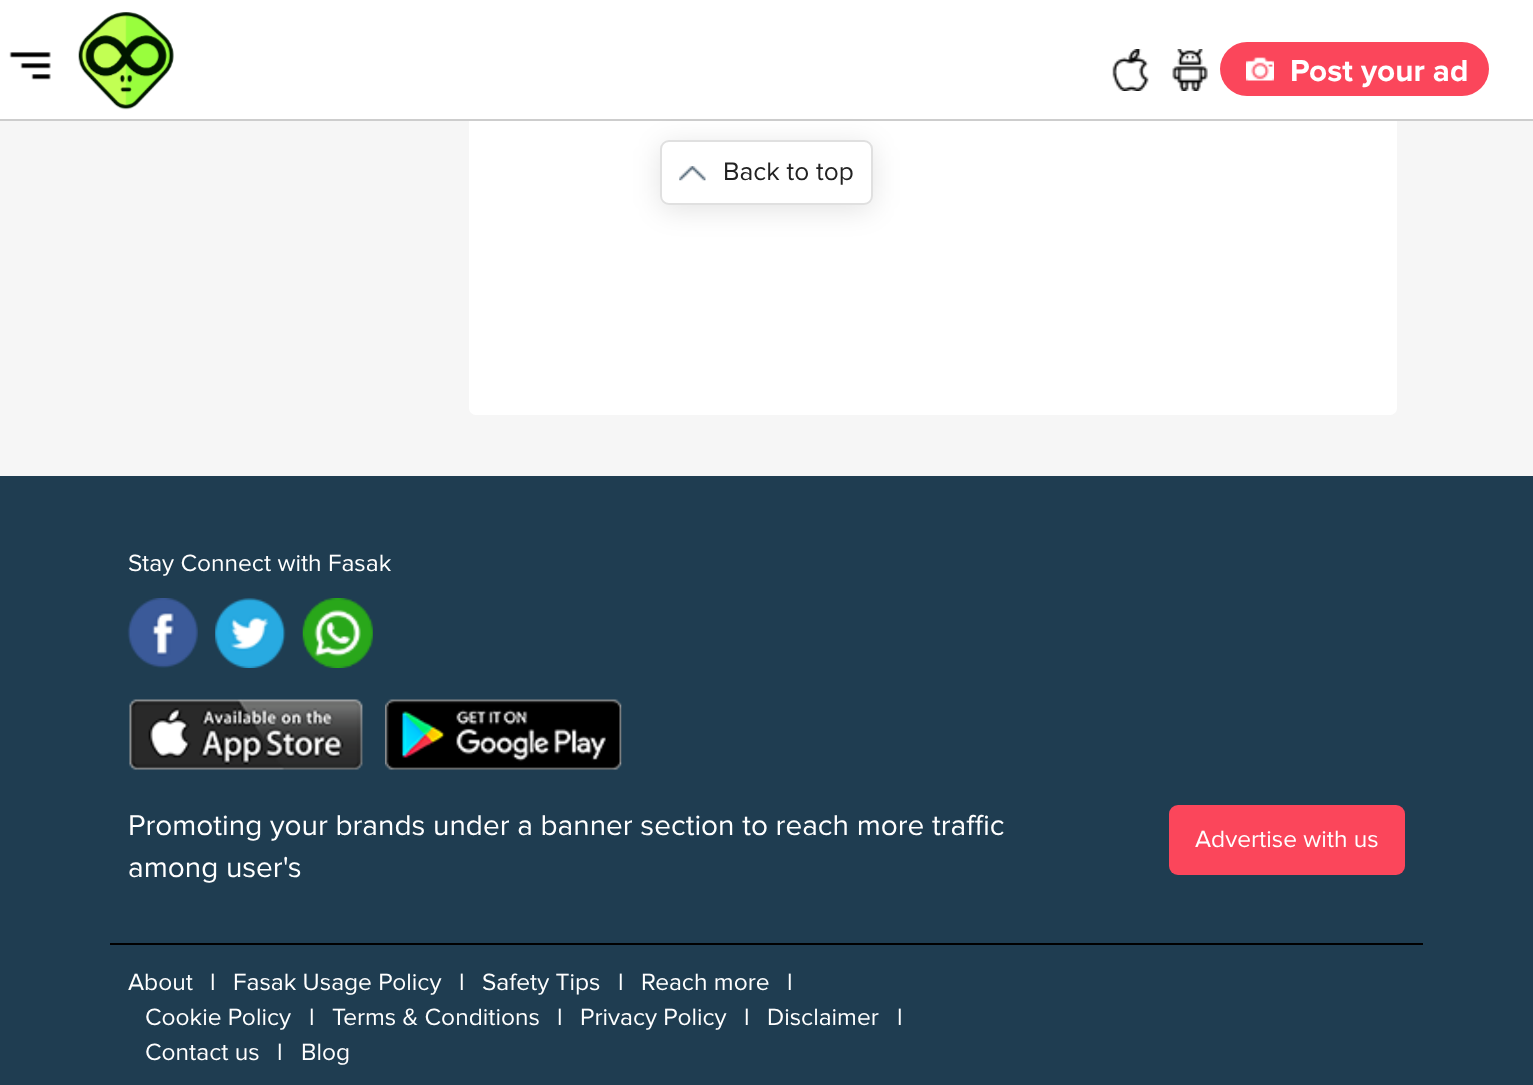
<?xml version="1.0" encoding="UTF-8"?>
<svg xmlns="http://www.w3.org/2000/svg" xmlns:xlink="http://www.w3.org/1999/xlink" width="1533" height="1085">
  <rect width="100%" height="100%" fill="#f6f6f6" />
  <rect x="469" y="-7" width="928" height="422" rx="7" fill="#ffffff" />
  <rect width="1533" height="119" fill="#ffffff" />
  <rect y="119" width="1533" height="2" fill="#cdcdcd" />
  <image x="9" y="52" width="42" height="28" xlink:href="image1.png" />
  <image x="78" y="12" width="96" height="98" xlink:href="image2.png" />
  <image x="1112" y="49" width="37" height="42" xlink:href="image3.png" />
  <image x="1172" y="49" width="36" height="42" xlink:href="image4.png" />
  <rect x="1220" y="42" width="269" height="54" rx="27" fill="#fb465b" />
  <image x="1246" y="57" width="28" height="24" xlink:href="image5.png" />
  <rect x="660" y="145" width="213" height="65" rx="9" fill="#000000" fill-opacity="0.11" filter="blur(14px)" />
  <rect x="661" y="141" width="211" height="63" rx="8" fill="#ffffff" stroke="#e0e0e0" stroke-width="2" />
  <image x="679" y="166" width="27" height="15" xlink:href="image6.png" />
  <rect y="476" width="1533" height="609" fill="#1f3d51" />
  <image x="127" y="598" width="71" height="70" xlink:href="image7.png" />
  <image x="215" y="598" width="71" height="70" xlink:href="image8.png" />
  <image x="302" y="598" width="71" height="70" xlink:href="image9.png" />
  <image x="129" y="699" width="234" height="71" xlink:href="image10.png" />
  <image x="385" y="699" width="237" height="71" xlink:href="image11.png" />
  <rect x="1169" y="805" width="236" height="70" rx="9" fill="#fb465b" />
  <rect x="110" y="943" width="1313" height="2" fill="#000000" />
  <text x="1290" y="81" style="font-family: Proxima Nova; font-size: 31.5px; font-weight: bold; fill: #ffffff">Post your ad</text>
  <text x="723" y="180" style="font-family: Proxima Nova; font-size: 26.25px; fill: #222222">Back to top</text>
  <text x="128" y="571" style="font-family: Proxima Nova; font-size: 24.5px; fill: #ffffff">Stay Connect with Fasak</text>
  <text x="128" y="835" style="font-family: Proxima Nova; font-size: 29.75px; fill: #ffffff">Promoting your brands under a banner section to reach more traffic</text>
  <text x="128" y="877" style="font-family: Proxima Nova; font-size: 29.75px; fill: #ffffff">among user's</text>
  <text x="1195" y="847" style="font-family: Proxima Nova; font-size: 24.5px; fill: #ffffff">Advertise with us</text>
  <text x="128" y="990" style="font-family: Proxima Nova; font-size: 24.5px; fill: #ffffff">About</text>
  <text x="210" y="990" style="font-family: Proxima Nova; font-size: 24.5px; fill: #ffffff">l</text>
  <text x="233" y="990" style="font-family: Proxima Nova; font-size: 24.5px; fill: #ffffff">Fasak Usage Policy</text>
  <text x="459" y="990" style="font-family: Proxima Nova; font-size: 24.5px; fill: #ffffff">l</text>
  <text x="482" y="990" style="font-family: Proxima Nova; font-size: 24.5px; fill: #ffffff">Safety Tips</text>
  <text x="618" y="990" style="font-family: Proxima Nova; font-size: 24.5px; fill: #ffffff">l</text>
  <text x="641" y="990" style="font-family: Proxima Nova; font-size: 24.5px; fill: #ffffff">Reach more</text>
  <text x="787" y="990" style="font-family: Proxima Nova; font-size: 24.5px; fill: #ffffff">l</text>
  <text x="145" y="1025" style="font-family: Proxima Nova; font-size: 24.5px; fill: #ffffff">Cookie Policy</text>
  <text x="309" y="1025" style="font-family: Proxima Nova; font-size: 24.5px; fill: #ffffff">l</text>
  <text x="332" y="1025" style="font-family: Proxima Nova; font-size: 24.5px; fill: #ffffff">Terms &amp; Conditions</text>
  <text x="557" y="1025" style="font-family: Proxima Nova; font-size: 24.5px; fill: #ffffff">l</text>
  <text x="580" y="1025" style="font-family: Proxima Nova; font-size: 24.5px; fill: #ffffff">Privacy Policy</text>
  <text x="744" y="1025" style="font-family: Proxima Nova; font-size: 24.5px; fill: #ffffff">l</text>
  <text x="767" y="1025" style="font-family: Proxima Nova; font-size: 24.5px; fill: #ffffff">Disclaimer</text>
  <text x="897" y="1025" style="font-family: Proxima Nova; font-size: 24.5px; fill: #ffffff">l</text>
  <text x="145" y="1060" style="font-family: Proxima Nova; font-size: 24.5px; fill: #ffffff">Contact us</text>
  <text x="277" y="1060" style="font-family: Proxima Nova; font-size: 24.5px; fill: #ffffff">l</text>
  <text x="301" y="1060" style="font-family: Proxima Nova; font-size: 24.5px; fill: #ffffff">Blog</text>
</svg>
